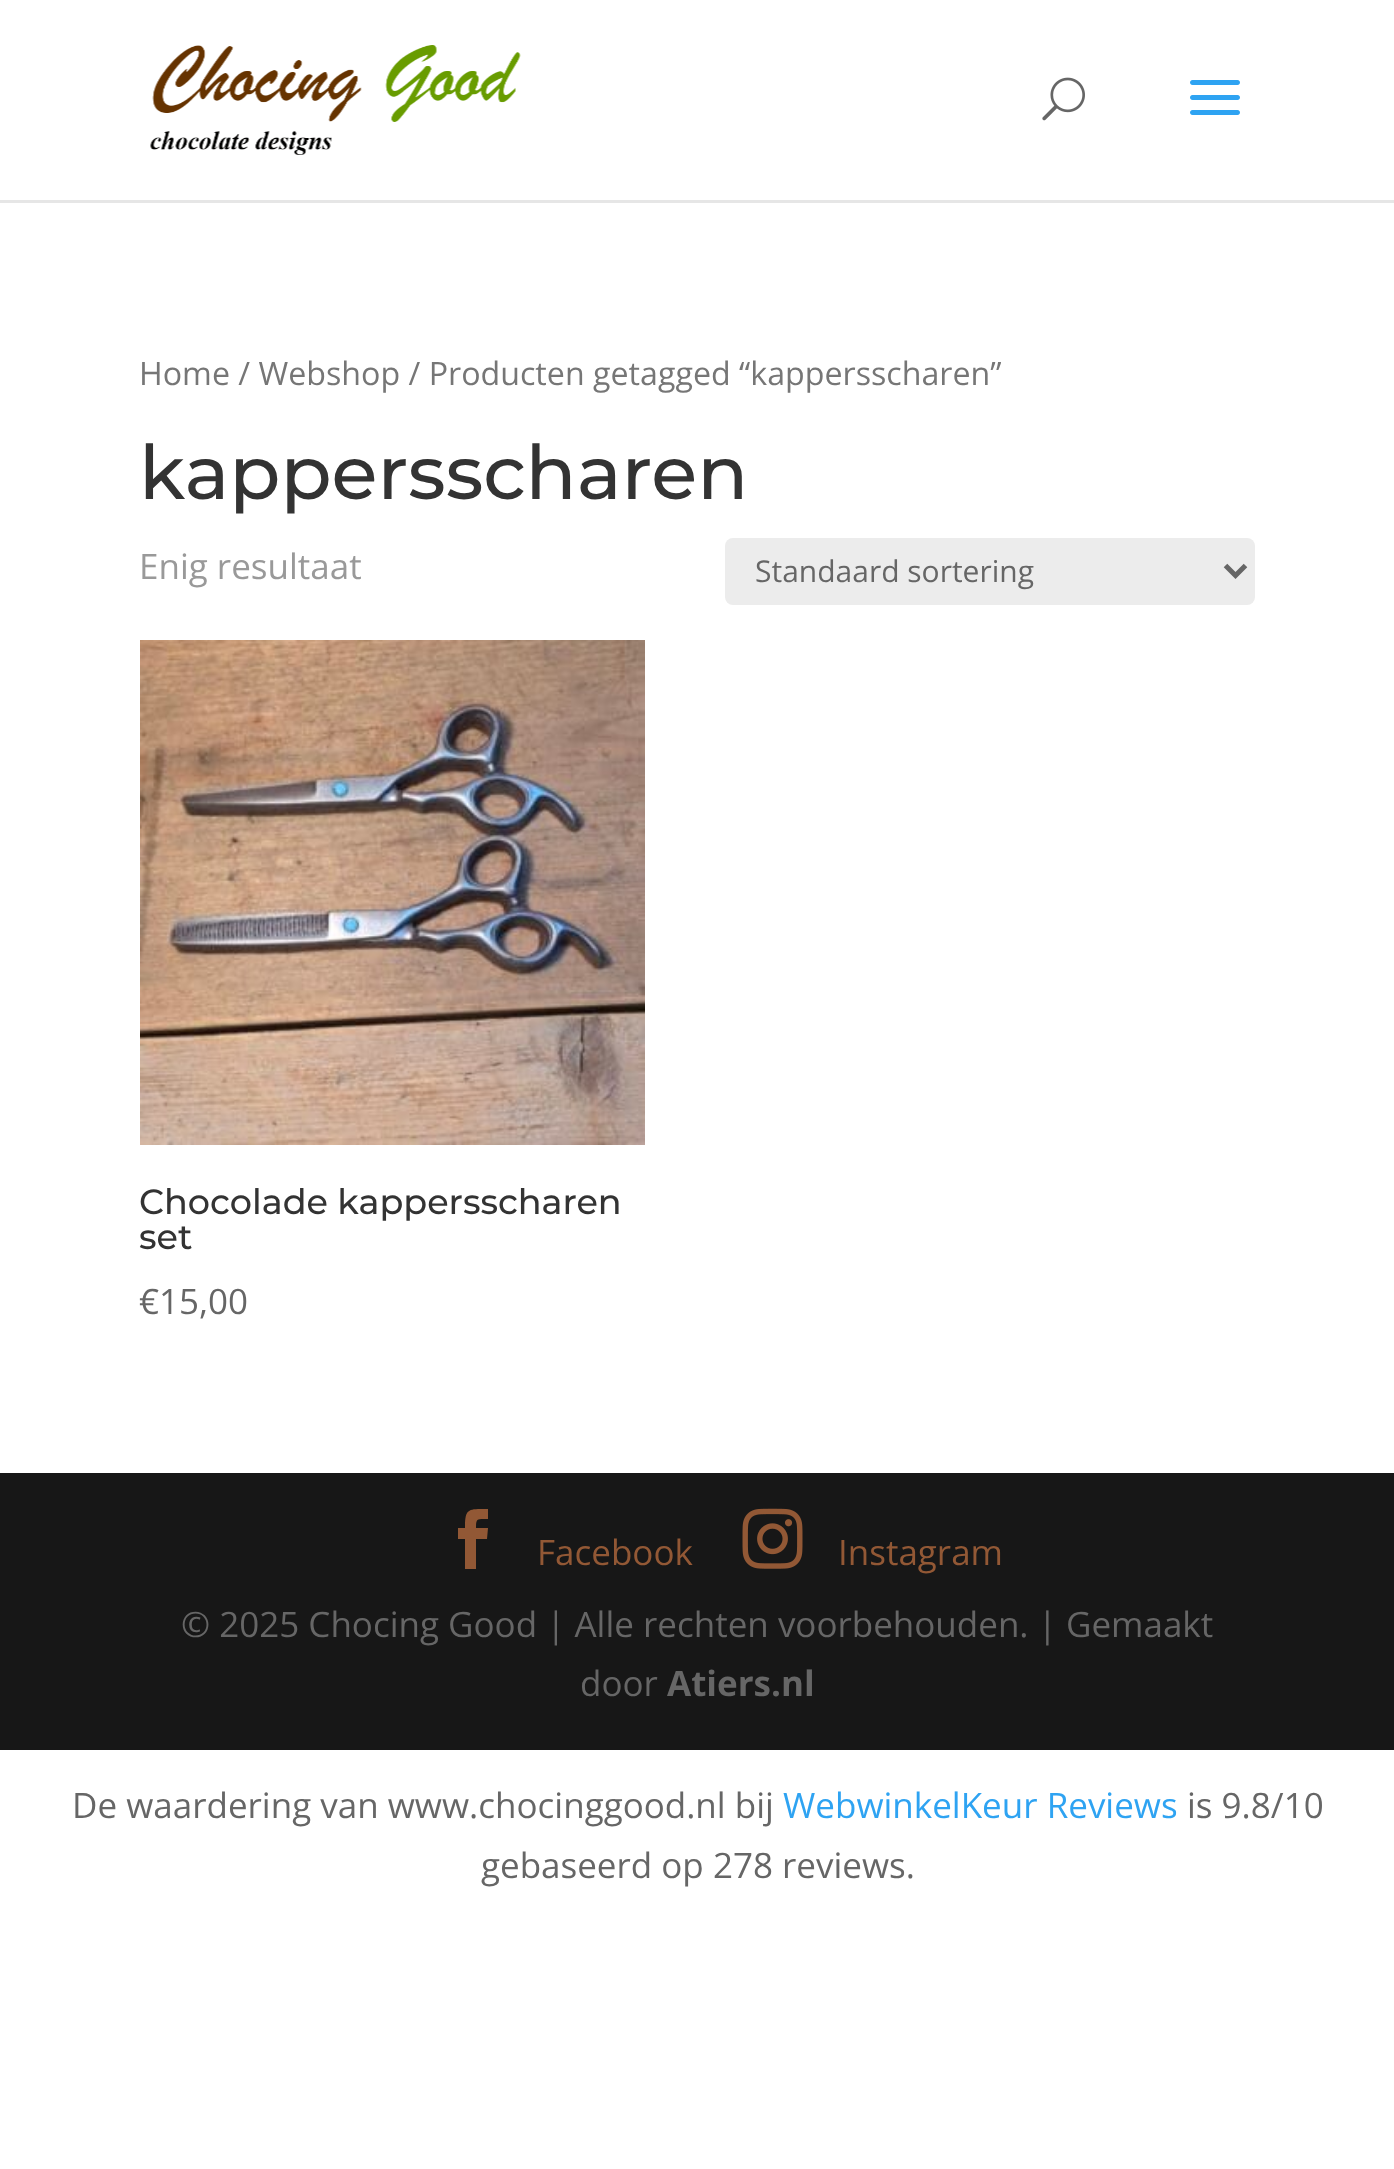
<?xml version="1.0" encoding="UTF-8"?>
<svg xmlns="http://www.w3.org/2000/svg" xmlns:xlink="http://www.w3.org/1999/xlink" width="1394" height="2169">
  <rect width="100%" height="100%" fill="#ffffff" />
  <rect y="200" width="1394" height="3" fill="#e6e6e6" />
  <image x="150" y="45" width="371" height="110" xlink:href="image1.png" />
  <image x="1042" y="77" width="43" height="44" xlink:href="image2.png" />
  <image x="1190" y="80" width="50" height="35" xlink:href="image3.png" />
  <rect x="725" y="538" width="530" height="67" rx="8" fill="#ececec" />
  <path d="M 1225.5 565.5 l 10 10 l 10 -10" fill="none" stroke="#666666" stroke-width="5" />
  <image x="140" y="640" width="505" height="505" xlink:href="image4.png" />
  <rect y="1473" width="1394" height="277" fill="#171717" />
  <path d="M 465 1569 h 11 v -30 h 11 l 1 -11 h -12 c 0 -10 1 -9 12 -9 v -10 c -20 0 -23 -1 -23 19 h -7 v 11 h 7 z" fill="#925835" />
  <image x="742" y="1508" width="61" height="61" xlink:href="image5.png" />
  <text x="139" y="385" style="font-family: Open Sans; font-size: 32.2px; fill: #767676">Home / Webshop / Producten getagged “kappersscharen”</text>
  <text x="139" y="499" style="font-family: Montserrat; font-size: 75px; font-weight: 500; fill: #333333">kappersscharen</text>
  <text x="139" y="579" style="font-family: Open Sans; font-size: 35px; fill: #999999">Enig resultaat</text>
  <text x="755" y="582" style="font-family: Open Sans; font-size: 30px; fill: #666666">Standaard sortering</text>
  <text x="139" y="1214" style="font-family: Montserrat; font-size: 35px; font-weight: 500; fill: #333333">Chocolade kappersscharen</text>
  <text x="139" y="1249" style="font-family: Montserrat; font-size: 35px; font-weight: 500; fill: #333333">set</text>
  <text x="139" y="1314" style="font-family: Open Sans; font-size: 35px; fill: #666666">€15,00</text>
  <text x="537" y="1565" style="font-family: Open Sans; font-size: 35px; fill: #925835">Facebook</text>
  <text x="838" y="1565" style="font-family: Open Sans; font-size: 35px; fill: #925835">Instagram</text>
  <text x="181" y="1637" style="font-family: Open Sans; font-size: 35px; fill: #666666">© 2025 Chocing Good | Alle rechten voorbehouden. | Gemaakt</text>
  <text x="580" y="1696" style="font-family: Open Sans; font-size: 35px; fill: #666666">door</text>
  <text x="667" y="1696" style="font-family: Open Sans; font-size: 35px; font-weight: bold; fill: #666666">Atiers.nl</text>
  <text x="72" y="1818" style="font-family: Open Sans; font-size: 35px; fill: #666666">De waardering van www.chocinggood.nl bij</text>
  <text x="783" y="1818" style="font-family: Open Sans; font-size: 35px; fill: #2ea3f2">WebwinkelKeur Reviews</text>
  <text x="1187" y="1818" style="font-family: Open Sans; font-size: 35px; fill: #666666">is 9.8/10</text>
  <text x="481" y="1878" style="font-family: Open Sans; font-size: 35px; fill: #666666">gebaseerd op 278 reviews.</text>
</svg>
